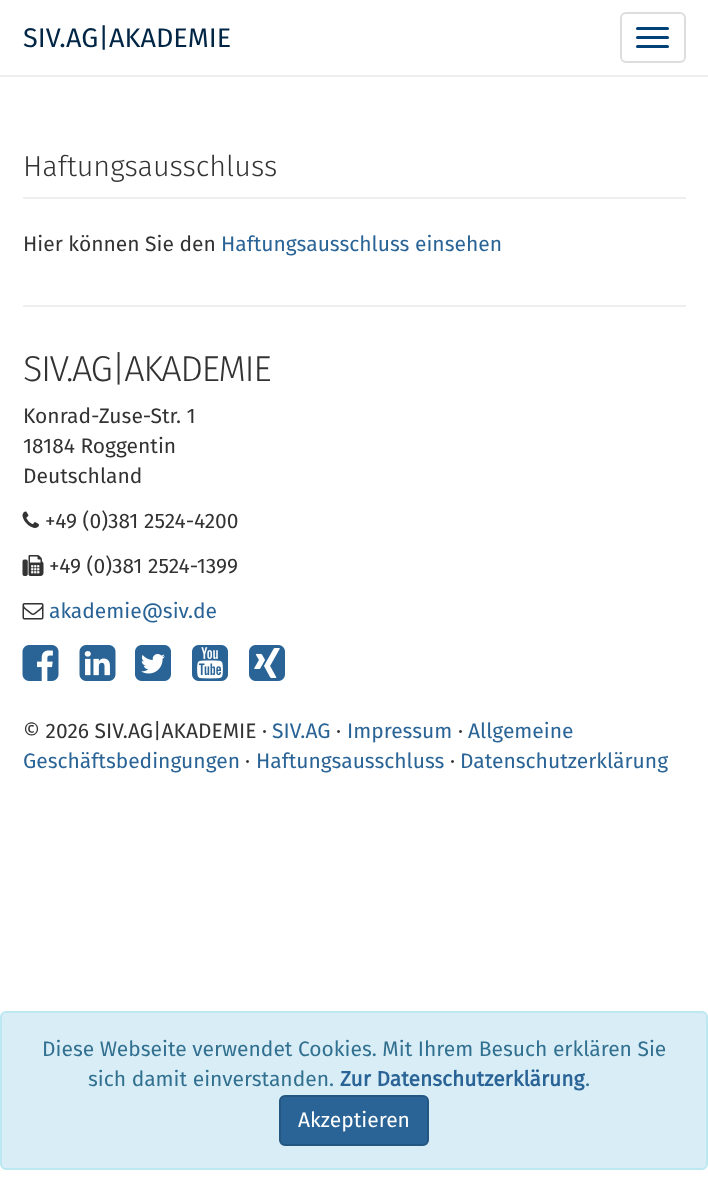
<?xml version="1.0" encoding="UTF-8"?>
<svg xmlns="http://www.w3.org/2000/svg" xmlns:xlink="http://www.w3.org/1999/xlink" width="708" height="1200">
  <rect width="100%" height="100%" fill="#ffffff" />
  <rect y="75" width="708" height="2" fill="#eeeeee" />
  <rect x="621" y="13" width="64" height="49" rx="5" fill="none" stroke="#dddddd" stroke-width="2" />
  <rect x="636" y="27" width="33" height="3" rx="1.5" fill="#004178" />
  <rect x="636" y="36" width="33" height="3" rx="1.5" fill="#004178" />
  <rect x="636" y="45" width="33" height="3" rx="1.5" fill="#004178" />
  <rect x="23" y="197" width="663" height="2" fill="#eeeeee" />
  <rect x="23" y="305" width="663" height="2" fill="#eeeeee" />
  <image x="22" y="511" width="17" height="17" xlink:href="image1.png" />
  <image x="22" y="555" width="22" height="21" xlink:href="image2.png" />
  <image x="22" y="603" width="22" height="17" xlink:href="image3.png" />
  <image x="22" y="645" width="37" height="36" xlink:href="image4.png" />
  <image x="79" y="645" width="37" height="36" xlink:href="image5.png" />
  <image x="135" y="645" width="36" height="36" xlink:href="image6.png" />
  <image x="192" y="645" width="36" height="36" xlink:href="image7.png" />
  <image x="249" y="645" width="36" height="36" xlink:href="image8.png" />
  <rect x="1" y="1012" width="706" height="157" rx="5" fill="#d9edf7" stroke="#bce8f1" stroke-width="2" />
  <rect x="280" y="1096" width="148" height="49" rx="5" fill="#2a6496" stroke="#245682" stroke-width="2" />
  <text x="23" y="47" style="font-family: Fira Sans; font-size: 27px; fill: #002545">SIV.AG|AKADEMIE</text>
  <text x="23" y="176" style="font-family: Fira Sans; font-size: 28.75px; font-weight: 300; fill: #333333">Haftungsausschluss</text>
  <text x="23" y="251" style="font-family: Fira Sans; font-size: 21px; fill: #333333">Hier können Sie den</text>
  <text x="221" y="251" style="font-family: Fira Sans; font-size: 21px; fill: #2a6496">Haftungsausschluss einsehen</text>
  <text x="23" y="381" style="font-family: Fira Sans; font-size: 36px; font-weight: 300; letter-spacing: -1.5px; fill: #333333">SIV.AG|AKADEMIE</text>
  <text x="23" y="423" style="font-family: Fira Sans; font-size: 21px; fill: #333333">Konrad-Zuse-Str. 1</text>
  <text x="23" y="453" style="font-family: Fira Sans; font-size: 21px; fill: #333333">18184 Roggentin</text>
  <text x="23" y="483" style="font-family: Fira Sans; font-size: 21px; fill: #333333">Deutschland</text>
  <text x="45" y="528" style="font-family: Fira Sans; font-size: 21px; fill: #333333">+49 (0)381 2524-4200</text>
  <text x="49" y="573" style="font-family: Fira Sans; font-size: 21px; fill: #333333">+49 (0)381 2524-1399</text>
  <text x="49" y="618" style="font-family: Fira Sans; font-size: 21px; fill: #2a6496">akademie@siv.de</text>
  <text x="23" y="738" style="font-family: Fira Sans; font-size: 21px; fill: #333333">© 2026 SIV.AG|AKADEMIE ·</text>
  <text x="272" y="738" style="font-family: Fira Sans; font-size: 21px; fill: #2a6496">SIV.AG</text>
  <text x="336" y="738" style="font-family: Fira Sans; font-size: 21px; fill: #333333">·</text>
  <text x="347" y="738" style="font-family: Fira Sans; font-size: 21px; fill: #2a6496">Impressum</text>
  <text x="458" y="738" style="font-family: Fira Sans; font-size: 21px; fill: #333333">·</text>
  <text x="468" y="738" style="font-family: Fira Sans; font-size: 21px; fill: #2a6496">Allgemeine</text>
  <text x="23" y="768" style="font-family: Fira Sans; font-size: 21px; fill: #2a6496">Geschäftsbedingungen</text>
  <text x="245" y="768" style="font-family: Fira Sans; font-size: 21px; fill: #333333">·</text>
  <text x="256" y="768" style="font-family: Fira Sans; font-size: 21px; fill: #2a6496">Haftungsausschluss</text>
  <text x="450" y="768" style="font-family: Fira Sans; font-size: 21px; fill: #333333">·</text>
  <text x="460" y="768" style="font-family: Fira Sans; font-size: 21px; fill: #2a6496">Datenschutzerklärung</text>
  <text x="42" y="1056" style="font-family: Fira Sans; font-size: 21px; fill: #31708f">Diese Webseite verwendet Cookies. Mit Ihrem Besuch erklären Sie</text>
  <text x="88" y="1086" style="font-family: Fira Sans; font-size: 21px; fill: #31708f">sich damit einverstanden.</text>
  <text x="340" y="1086" style="font-family: Fira Sans; font-size: 21px; font-weight: bold; fill: #2a6496">Zur Datenschutzerklärung</text>
  <text x="585" y="1086" style="font-family: Fira Sans; font-size: 21px; fill: #31708f">.</text>
  <text x="298" y="1127" style="font-family: Fira Sans; font-size: 21px; fill: #ffffff">Akzeptieren</text>
</svg>
